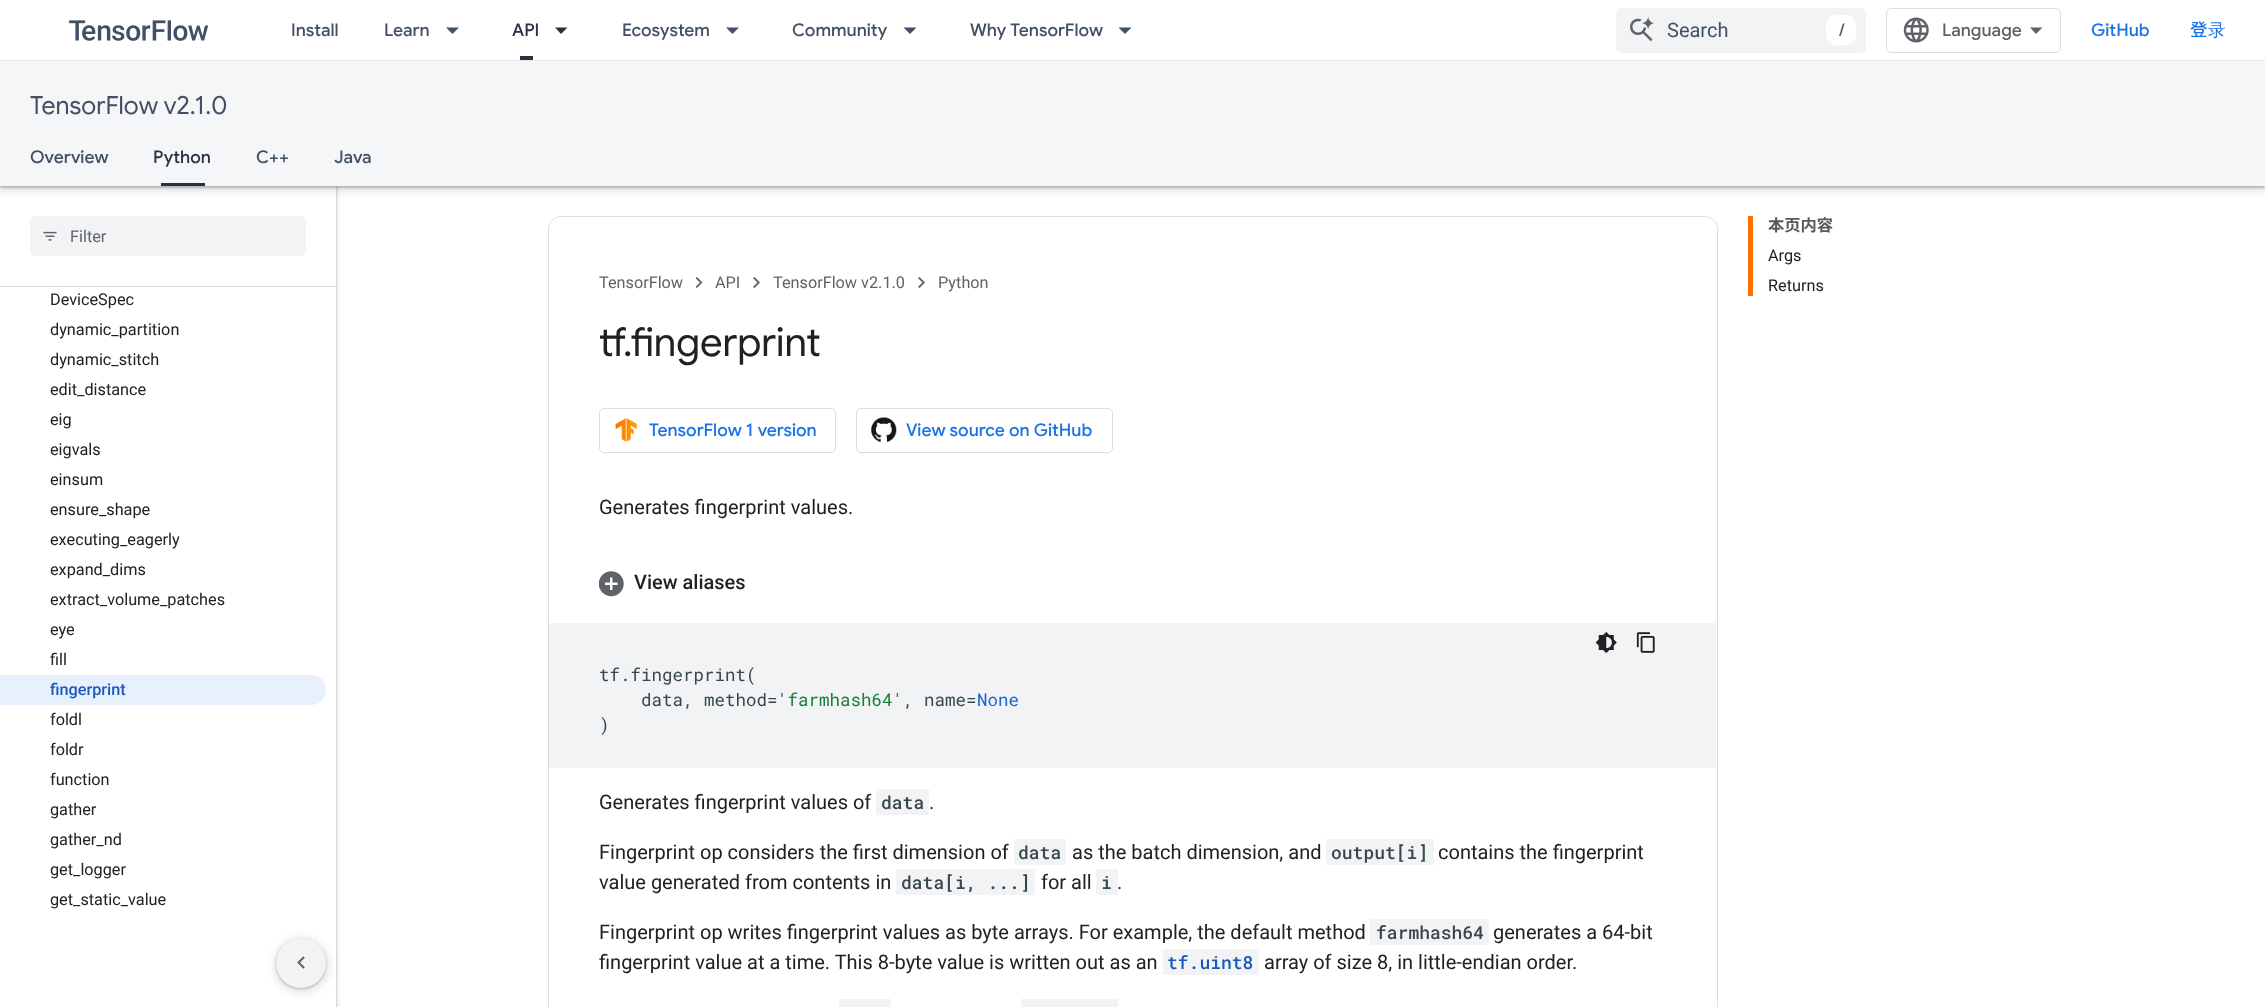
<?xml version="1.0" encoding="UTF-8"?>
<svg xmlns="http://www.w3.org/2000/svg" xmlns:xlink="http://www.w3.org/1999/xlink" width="2265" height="1007">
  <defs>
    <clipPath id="clip1"><rect x="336" y="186" width="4" height="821" /></clipPath>
    <clipPath id="clip2"><rect x="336" y="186" width="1" height="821" /></clipPath>
  </defs>
  <rect width="100%" height="100%" fill="#ffffff" />
  <g clip-path="url(#clip1)">
    <rect x="-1" width="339" height="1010" fill="#3c4043" fill-opacity="0.15" filter="blur(2px)" />
  </g>
  <g clip-path="url(#clip2)">
    <rect y="1" width="336" height="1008" fill="#3c4043" fill-opacity="0.3" filter="blur(1px)" />
  </g>
  <rect x="-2" y="61" width="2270" height="130" fill="#3c4043" fill-opacity="0.15" filter="blur(4px)" />
  <rect y="63" width="2265" height="125" fill="#3c4043" fill-opacity="0.3" filter="blur(1px)" />
  <rect width="2265" height="60" fill="#ffffff" />
  <rect y="60" width="2265" height="1" fill="#e6e6e6" />
  <image x="69" y="20" width="140" height="21" xlink:href="image1.png" />
  <path d="M 446 27.5 h 13 l -6.5 6.5 z" fill="#425066" />
  <rect x="520" y="56" width="13" height="4" fill="#293241" />
  <path d="M 555 27.5 h 12.5 l -6.5 6.5 z" fill="#293241" />
  <path d="M 726 27.5 h 13 l -6.5 6.5 z" fill="#425066" />
  <path d="M 903.5 27.5 h 13 l -6.5 6.5 z" fill="#425066" />
  <path d="M 1118.5 27.5 h 13 l -6.5 6.5 z" fill="#425066" />
  <rect x="1616" y="8" width="250" height="45" rx="5" fill="#f1f3f4" />
  <image x="1630" y="16" width="25" height="26" xlink:href="image2.png" />
  <rect x="1826" y="15" width="30" height="30" rx="10" fill="#ffffff" />
  <rect x="1886.5" y="8.5" width="174" height="44" rx="4.5" fill="none" stroke="#dadce0" />
  <image x="1903" y="17" width="26" height="26" xlink:href="image3.png" />
  <path d="M 2036 34 l -6 -6.5 h 12.5 z" fill="#5f6368" />
  <rect y="61" width="2265" height="125" fill="#f5f6f7" />
  <rect x="161" y="183" width="44" height="3" fill="#293241" />
  <rect y="286" width="336" height="1" fill="#dadce0" />
  <rect x="30" y="216" width="276" height="40" rx="5" fill="#f1f3f4" />
  <image x="43" y="231" width="14" height="10" xlink:href="image4.png" />
  <path d="M 0 675 h 311 c 8.5 0 15 6.5 15 15 c 0 8.5 -6.5 15 -15 15 h -311 z" fill="#e8f0fe" />
  <rect x="1748" y="216" width="5" height="80" fill="#ff6f00" />
  <rect x="548.5" y="216.5" width="1169" height="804" rx="12.5" fill="none" stroke="#dadce0" />
  <image x="695" y="277" width="8" height="11" xlink:href="image5.png" />
  <image x="753" y="277" width="7" height="11" xlink:href="image6.png" />
  <image x="918" y="277" width="7" height="11" xlink:href="image6.png" />
  <rect x="599.5" y="408.5" width="236" height="44" rx="4.5" fill="none" stroke="#dadce0" />
  <image x="615" y="418" width="23" height="24" xlink:href="image7.png" />
  <rect x="856.5" y="408.5" width="256" height="44" rx="4.5" fill="none" stroke="#dadce0" />
  <image x="871" y="417" width="26" height="25" xlink:href="image8.png" />
  <image x="599" y="571" width="25" height="26" xlink:href="image9.png" />
  <rect x="549" y="623" width="1167" height="145" fill="#f1f3f4" />
  <image x="1595" y="632" width="22" height="21" xlink:href="image10.png" />
  <image x="1636" y="632" width="19" height="21" xlink:href="image11.png" />
  <rect x="876" y="789" width="53" height="26" fill="#f1f3f4" />
  <rect x="1014" y="839" width="52" height="26" fill="#f1f3f4" />
  <rect x="1326" y="839" width="108" height="26" fill="#f1f3f4" />
  <rect x="896" y="869" width="139" height="26" fill="#f1f3f4" />
  <rect x="1096" y="869" width="22" height="26" fill="#f1f3f4" />
  <rect x="1370" y="919" width="119" height="26" fill="#f1f3f4" />
  <rect x="1163" y="949" width="96" height="26" fill="#f1f3f4" />
  <rect x="839" y="999" width="52" height="8" fill="#f1f3f4" />
  <rect x="1021" y="999" width="97" height="8" fill="#f1f3f4" />
  <rect x="274" y="938" width="55" height="55" rx="27.5" fill="#3c4043" fill-opacity="0.15" filter="blur(4px)" />
  <rect x="276" y="939" width="50" height="50" rx="25" fill="#3c4043" fill-opacity="0.3" filter="blur(1px)" />
  <circle cx="301" cy="963" r="25" fill="#f1f3f4" />
  <image x="297" y="956" width="8" height="13" xlink:href="image12.png" />
  <text x="291" y="36" style="font-family: Google Sans; font-size: 17.5px; font-weight: 500; fill: #425066">Install</text>
  <text x="384" y="36" style="font-family: Google Sans; font-size: 17.5px; font-weight: 500; fill: #425066">Learn</text>
  <text x="512" y="36" style="font-family: Google Sans; font-size: 17.5px; font-weight: 500; fill: #293241">API</text>
  <text x="622" y="36" style="font-family: Google Sans; font-size: 17.5px; font-weight: 500; fill: #425066">Ecosystem</text>
  <text x="792" y="36" style="font-family: Google Sans; font-size: 17.5px; font-weight: 500; fill: #425066">Community</text>
  <text x="970" y="36" style="font-family: Google Sans; font-size: 17.5px; font-weight: 500; fill: #425066">Why TensorFlow</text>
  <text x="1667" y="37" style="font-family: Roboto; font-size: 20px; fill: #425066">Search</text>
  <text x="1839" y="36" style="font-family: Google Sans; font-size: 17.5px; font-weight: 500; fill: #5f6368">/</text>
  <text x="1942" y="36" style="font-family: Google Sans; font-size: 17.5px; font-weight: 500; fill: #5f6368">Language</text>
  <text x="2091" y="36" style="font-family: Google Sans; font-size: 17.5px; font-weight: 500; fill: #1a73e8">GitHub</text>
  <text x="2190" y="36" style="font-family: Noto Sans JP; font-size: 17.5px; font-weight: 500; fill: #1a73e8">登</text>
  <text x="2208" y="36" style="font-family: WenQuanYi Zen Hei; font-size: 17.5px; font-weight: 500; fill: #1a73e8">录</text>
  <text x="30" y="114" style="font-family: Google Sans; font-size: 25px; fill: #425066">TensorFlow v2.1.0</text>
  <text x="30" y="163" style="font-family: Google Sans; font-size: 17.5px; font-weight: 500; fill: #425066">Overview</text>
  <text x="153" y="163" style="font-family: Google Sans; font-size: 17.5px; font-weight: 500; fill: #293241">Python</text>
  <text x="256" y="163" style="font-family: Google Sans; font-size: 17.5px; font-weight: 500; fill: #425066">C++</text>
  <text x="334" y="163" style="font-family: Google Sans; font-size: 17.5px; font-weight: 500; fill: #425066">Java</text>
  <text x="70" y="242" style="font-family: Roboto; font-size: 16.25px; fill: #5f6368">Filter</text>
  <text x="50" y="305" style="font-family: Roboto; font-size: 16.25px; fill: #202124">DeviceSpec</text>
  <text x="50" y="335" style="font-family: Roboto; font-size: 16.25px; fill: #202124">dynamic_partition</text>
  <text x="50" y="365" style="font-family: Roboto; font-size: 16.25px; fill: #202124">dynamic_stitch</text>
  <text x="50" y="395" style="font-family: Roboto; font-size: 16.25px; fill: #202124">edit_distance</text>
  <text x="50" y="425" style="font-family: Roboto; font-size: 16.25px; fill: #202124">eig</text>
  <text x="50" y="455" style="font-family: Roboto; font-size: 16.25px; fill: #202124">eigvals</text>
  <text x="50" y="485" style="font-family: Roboto; font-size: 16.25px; fill: #202124">einsum</text>
  <text x="50" y="515" style="font-family: Roboto; font-size: 16.25px; fill: #202124">ensure_shape</text>
  <text x="50" y="545" style="font-family: Roboto; font-size: 16.25px; fill: #202124">executing_eagerly</text>
  <text x="50" y="575" style="font-family: Roboto; font-size: 16.25px; fill: #202124">expand_dims</text>
  <text x="50" y="605" style="font-family: Roboto; font-size: 16.25px; fill: #202124">extract_volume_patches</text>
  <text x="50" y="635" style="font-family: Roboto; font-size: 16.25px; fill: #202124">eye</text>
  <text x="50" y="665" style="font-family: Roboto; font-size: 16.25px; fill: #202124">fill</text>
  <text x="50" y="695" style="font-family: Roboto; font-size: 16.25px; font-weight: 500; fill: #185abc">fingerprint</text>
  <text x="50" y="725" style="font-family: Roboto; font-size: 16.25px; fill: #202124">foldl</text>
  <text x="50" y="755" style="font-family: Roboto; font-size: 16.25px; fill: #202124">foldr</text>
  <text x="50" y="785" style="font-family: Roboto; font-size: 16.25px; fill: #202124">function</text>
  <text x="50" y="815" style="font-family: Roboto; font-size: 16.25px; fill: #202124">gather</text>
  <text x="50" y="845" style="font-family: Roboto; font-size: 16.25px; fill: #202124">gather_nd</text>
  <text x="50" y="875" style="font-family: Roboto; font-size: 16.25px; fill: #202124">get_logger</text>
  <text x="50" y="905" style="font-family: Roboto; font-size: 16.25px; fill: #202124">get_static_value</text>
  <text x="1768" y="231" style="font-family: Noto Sans JP; font-size: 16.25px; font-weight: bold; fill: #595959">本页内容</text>
  <text x="1768" y="261" style="font-family: Roboto; font-size: 16.25px; fill: #202124">Args</text>
  <text x="1768" y="291" style="font-family: Roboto; font-size: 16.25px; fill: #202124">Returns</text>
  <text x="599" y="288" style="font-family: Roboto; font-size: 16.25px; fill: #5f6368">TensorFlow</text>
  <text x="715" y="288" style="font-family: Roboto; font-size: 16.25px; fill: #5f6368">API</text>
  <text x="773" y="288" style="font-family: Roboto; font-size: 16.25px; fill: #5f6368">TensorFlow v2.1.0</text>
  <text x="938" y="288" style="font-family: Roboto; font-size: 16.25px; fill: #5f6368">Python</text>
  <text x="599" y="356" style="font-family: Google Sans; font-size: 40px; fill: #202124">tf</text>
  <text x="623" y="356" style="font-family: Google Sans; font-size: 40px; fill: #202124">.fingerprint</text>
  <text x="649" y="436" style="font-family: Google Sans; font-size: 17.5px; font-weight: 500; fill: #1a73e8">TensorFlow 1 version</text>
  <text x="906" y="436" style="font-family: Google Sans; font-size: 17.5px; font-weight: 500; fill: #1a73e8">View source on GitHub</text>
  <text x="599" y="514" style="font-family: Roboto; font-size: 20px; fill: #202124">Generates fingerprint values.</text>
  <text x="634" y="589" style="font-family: Roboto; font-size: 20px; font-weight: 500; fill: #202124">View aliases</text>
  <text x="599" y="681" style="font-family: Roboto Mono; font-size: 17.5px; fill: #37474f">tf.fingerprint(</text>
  <text x="641" y="706" style="font-family: Roboto Mono; font-size: 17.5px; fill: #37474f">data, method=</text>
  <text x="777" y="706" style="font-family: Roboto Mono; font-size: 17.5px; fill: #188038">'farmhash64'</text>
  <text x="903" y="706" style="font-family: Roboto Mono; font-size: 17.5px; fill: #37474f">, name=</text>
  <text x="977" y="706" style="font-family: Roboto Mono; font-size: 17.5px; fill: #1967d2">None</text>
  <text x="599" y="731" style="font-family: Roboto Mono; font-size: 17.5px; fill: #37474f">)</text>
  <text x="599" y="809" style="font-family: Roboto; font-size: 20px; fill: #202124">Generates fingerprint values of</text>
  <text x="881" y="809" style="font-family: Roboto Mono; font-size: 18px; font-weight: 500; fill: #37474f">data</text>
  <text x="929" y="809" style="font-family: Roboto; font-size: 20px; fill: #202124">.</text>
  <text x="599" y="859" style="font-family: Roboto; font-size: 20px; fill: #202124">Fingerprint op considers the first dimension of</text>
  <text x="1018" y="859" style="font-family: Roboto Mono; font-size: 18px; font-weight: 500; fill: #37474f">data</text>
  <text x="1072" y="859" style="font-family: Roboto; font-size: 20px; fill: #202124">as the batch dimension, and</text>
  <text x="1331" y="859" style="font-family: Roboto Mono; font-size: 18px; font-weight: 500; fill: #37474f">output[i]</text>
  <text x="1438" y="859" style="font-family: Roboto; font-size: 20px; fill: #202124">contains the fingerprint</text>
  <text x="599" y="889" style="font-family: Roboto; font-size: 20px; fill: #202124">value generated from contents in</text>
  <text x="901" y="889" style="font-family: Roboto Mono; font-size: 18px; font-weight: 500; fill: #37474f">data[i, ...]</text>
  <text x="1041" y="889" style="font-family: Roboto; font-size: 20px; fill: #202124">for all</text>
  <text x="1101" y="889" style="font-family: Roboto Mono; font-size: 18px; font-weight: 500; fill: #37474f">i</text>
  <text x="1117" y="889" style="font-family: Roboto; font-size: 20px; fill: #202124">.</text>
  <text x="599" y="939" style="font-family: Roboto; font-size: 20px; fill: #202124">Fingerprint op writes fingerprint values as byte arrays. For example, the default method</text>
  <text x="1376" y="939" style="font-family: Roboto Mono; font-size: 18px; font-weight: 500; fill: #37474f">farmhash64</text>
  <text x="1493" y="939" style="font-family: Roboto; font-size: 20px; fill: #202124">generates a 64-bit</text>
  <text x="599" y="969" style="font-family: Roboto; font-size: 20px; fill: #202124">fingerprint value at a time. This 8-byte value is written out as an</text>
  <text x="1167" y="969" style="font-family: Roboto Mono; font-size: 18px; font-weight: 500; fill: #185abc">tf.uint8</text>
  <text x="1264" y="969" style="font-family: Roboto; font-size: 20px; fill: #202124">array of size 8, in little-endian order.</text>
</svg>
